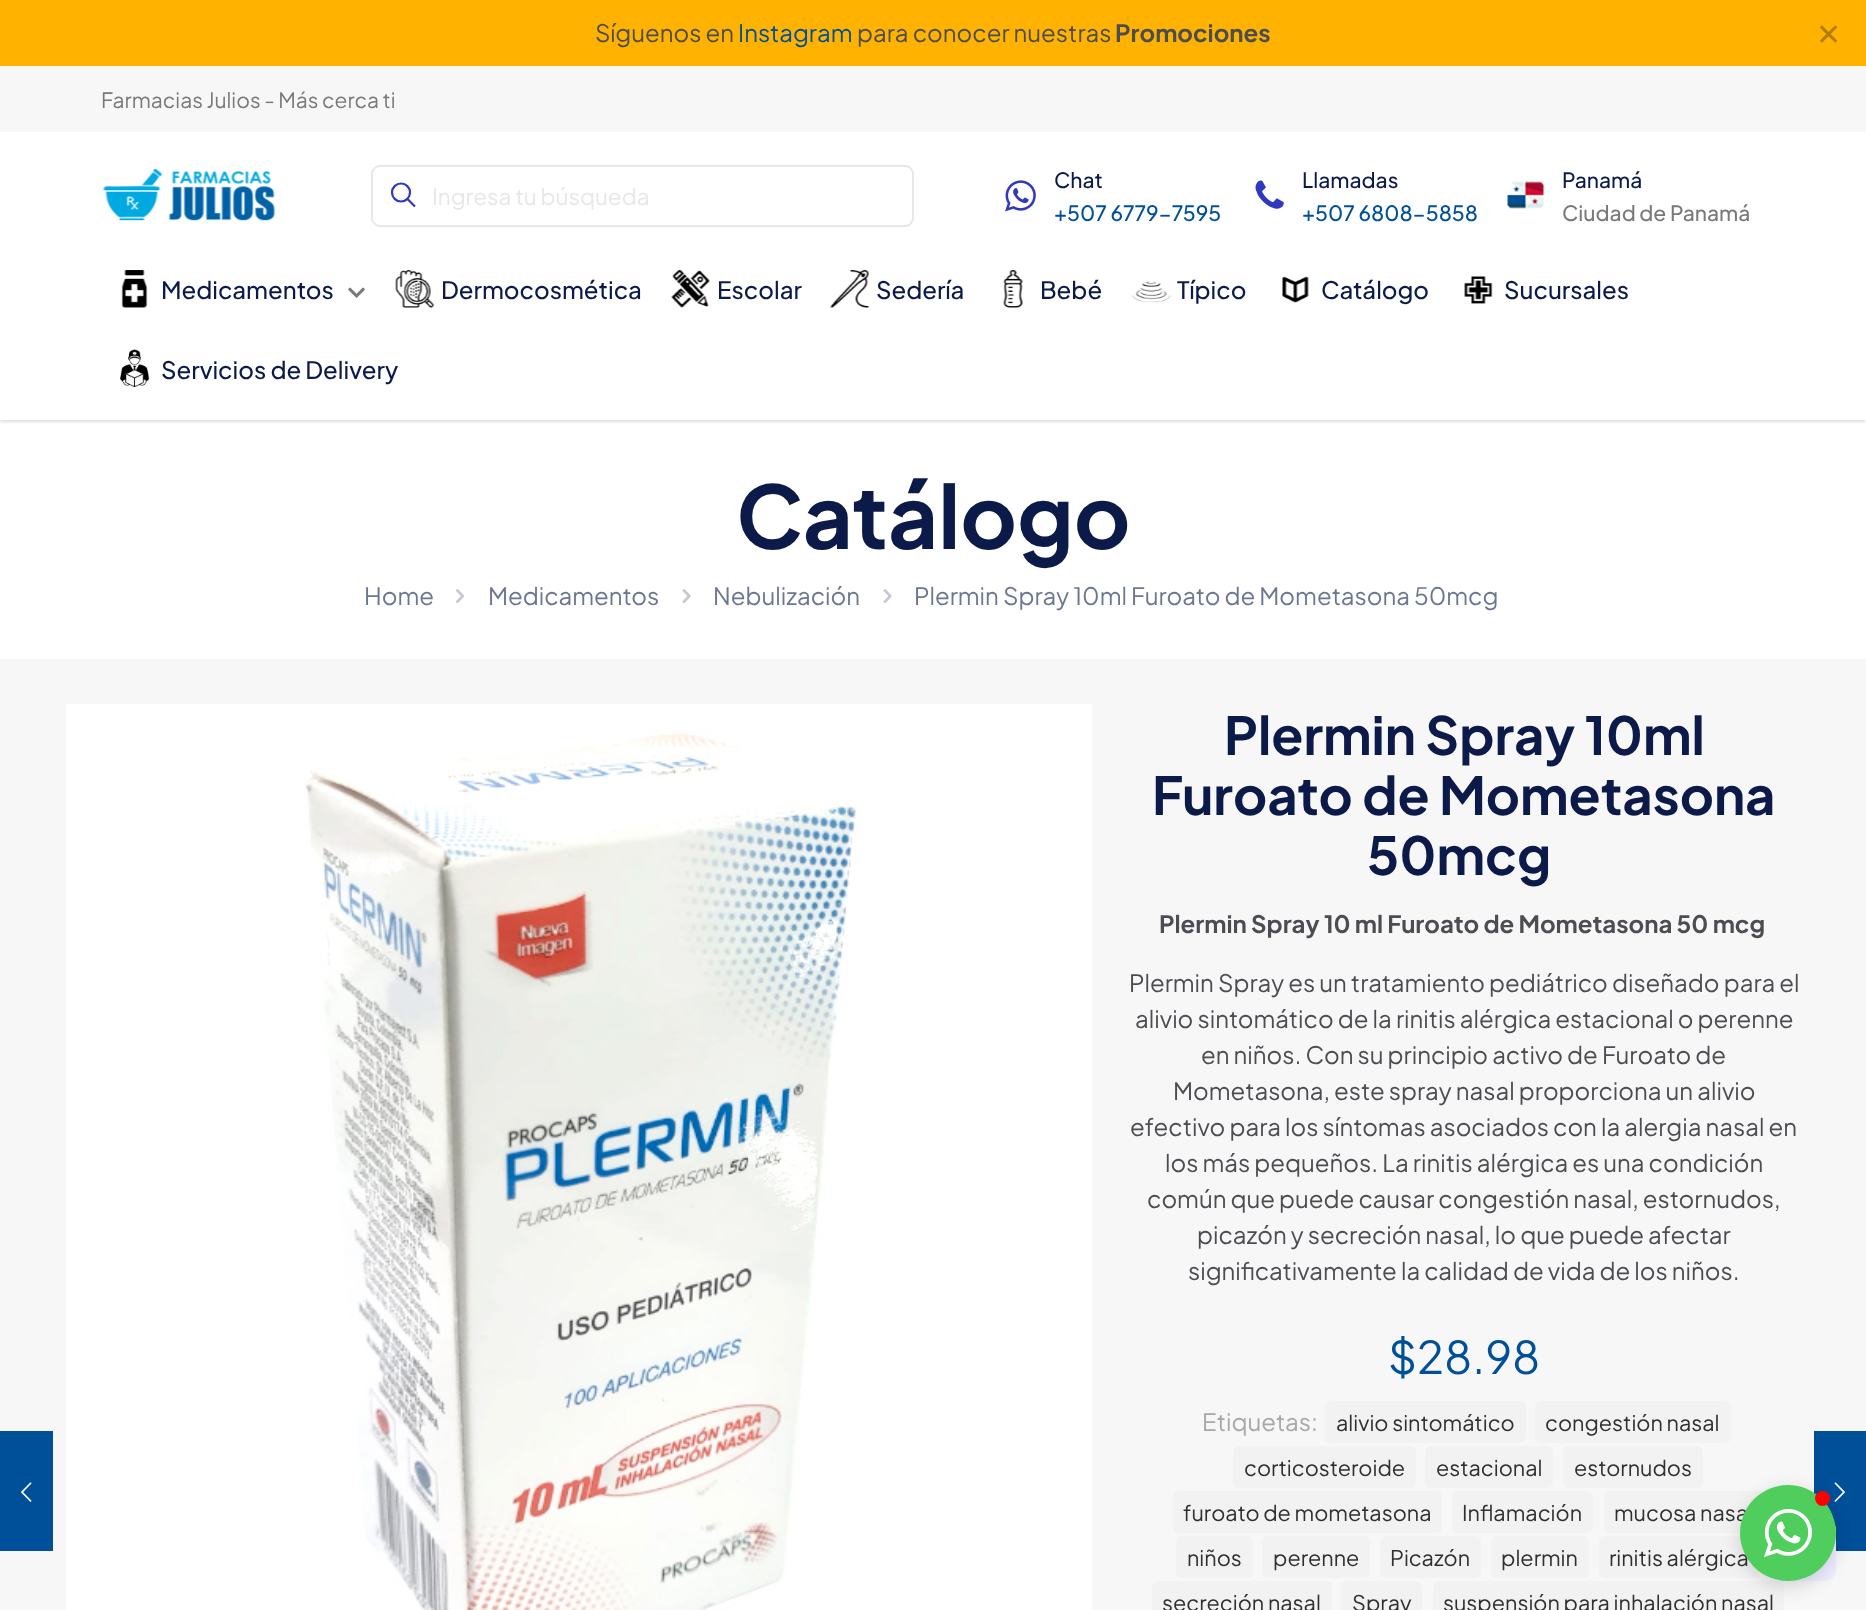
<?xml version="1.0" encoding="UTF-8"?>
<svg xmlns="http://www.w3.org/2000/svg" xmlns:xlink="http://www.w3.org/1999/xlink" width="1866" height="1610">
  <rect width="100%" height="100%" fill="#f7f7f7" />
  <rect y="1431" width="53" height="120" fill="#004f99" />
  <image x="21" y="1482" width="11" height="20" xlink:href="image1.png" />
  <rect width="1866" height="66" fill="#ffb300" />
  <rect y="132" width="1866" height="111" fill="#ffffff" />
  <image x="102" y="169" width="173" height="52" xlink:href="image2.png" />
  <rect x="372" y="166" width="541" height="60" rx="8" fill="none" stroke="#e7e7e7" stroke-width="2" />
  <circle cx="401" cy="192.5" r="9" fill="none" stroke="#2f38bf" stroke-width="2.2" />
  <path d="M 407.5 199 l 7.5 7.5" fill="none" stroke="#2f38bf" stroke-width="2.2" />
  <image x="1005" y="180" width="31" height="32" xlink:href="image3.png" />
  <image x="1255" y="180" width="29" height="29" xlink:href="image4.png" />
  <image x="1507" y="181" width="37" height="28" xlink:href="image5.png" />
  <rect y="420" width="1866" height="239" fill="#ffffff" />
  <rect y="245" width="1866" height="177" fill="#000000" fill-opacity="0.12" filter="blur(1.5px)" />
  <rect y="243" width="1866" height="177" fill="#ffffff" />
  <image x="121" y="270" width="27" height="38" xlink:href="image6.png" />
  <image x="348" y="287" width="17" height="11" xlink:href="image7.png" />
  <image x="395" y="270" width="39" height="38" xlink:href="image8.png" />
  <image x="671" y="270" width="39" height="38" xlink:href="image9.png" />
  <image x="830" y="270" width="39" height="38" xlink:href="image10.png" />
  <image x="1003" y="270" width="20" height="38" xlink:href="image11.png" />
  <image x="1132" y="281" width="39" height="22" xlink:href="image12.png" />
  <image x="1282" y="276" width="27" height="27" xlink:href="image13.png" />
  <image x="1464" y="276" width="29" height="28" xlink:href="image14.png" />
  <image x="120" y="349" width="30" height="38" xlink:href="image15.png" />
  <image x="456" y="589" width="8" height="14" xlink:href="image16.png" />
  <image x="682" y="589" width="9" height="14" xlink:href="image17.png" />
  <image x="883" y="589" width="9" height="14" xlink:href="image17.png" />
  <image x="66" y="704" width="1026" height="906" xlink:href="image18.png" />
  <rect x="1325" y="1401" width="201" height="42" rx="6" fill="#f2f2f2" />
  <rect x="1535" y="1401" width="196" height="42" rx="6" fill="#f2f2f2" />
  <rect x="1233" y="1446" width="183" height="42" rx="6" fill="#f2f2f2" />
  <rect x="1425" y="1446" width="128" height="42" rx="6" fill="#f2f2f2" />
  <rect x="1563" y="1446" width="140" height="42" rx="6" fill="#f2f2f2" />
  <rect x="1173" y="1491" width="269" height="42" rx="6" fill="#f2f2f2" />
  <rect x="1452" y="1491" width="141" height="42" rx="6" fill="#f2f2f2" />
  <rect x="1604" y="1491" width="159" height="42" rx="6" fill="#f2f2f2" />
  <rect x="1176" y="1536" width="77" height="42" rx="6" fill="#f2f2f2" />
  <rect x="1262" y="1536" width="108" height="42" rx="6" fill="#f2f2f2" />
  <rect x="1380" y="1536" width="101" height="42" rx="6" fill="#f2f2f2" />
  <rect x="1491" y="1536" width="98" height="42" rx="6" fill="#f2f2f2" />
  <rect x="1599" y="1536" width="161" height="42" rx="6" fill="#f2f2f2" />
  <rect x="1152" y="1581" width="180" height="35" rx="6" fill="#f2f2f2" />
  <rect x="1341" y="1581" width="81" height="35" rx="6" fill="#f2f2f2" />
  <rect x="1433" y="1581" width="351" height="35" rx="6" fill="#f2f2f2" />
  <rect x="1814" y="1431" width="52" height="120" fill="#004f99" />
  <image x="1834" y="1482" width="11" height="20" xlink:href="image19.png" />
  <rect x="1773" y="1518" width="63" height="63" rx="12" fill="#ededff" />
  <rect x="1740" y="1490" width="96" height="96" rx="48" fill="#000000" fill-opacity="0.15" filter="blur(9px)" />
  <text x="595" y="42" style="font-family: Plus Jakarta Sans; font-size: 24px; fill: #4c4d52">Síguenos en</text>
  <text x="738" y="42" style="font-family: Plus Jakarta Sans; font-size: 24px; fill: #004f99">Instagram</text>
  <text x="857" y="42" style="font-family: Plus Jakarta Sans; font-size: 24px; fill: #4c4d52">para conocer nuestras</text>
  <text x="1115" y="42" style="font-family: Plus Jakarta Sans; font-size: 24px; font-weight: bold; fill: #4c4d52">Promociones</text>
  <text x="1816" y="45" style="font-family: DejaVu Sans; font-size: 30px; fill: #b37d00">✕</text>
  <text x="101" y="108" style="font-family: Plus Jakarta Sans; font-size: 21px; fill: #797979">Farmacias Julios - Más cerca ti</text>
  <text x="432" y="205" style="font-family: Plus Jakarta Sans; font-size: 22.5px; fill: #e7e7e7">Ingresa tu búsqueda</text>
  <text x="1054" y="188" style="font-family: Plus Jakarta Sans; font-size: 21px; font-weight: 500; fill: #0b1a48">Chat</text>
  <text x="1054" y="221" style="font-family: Plus Jakarta Sans; font-size: 21px; font-weight: 500; fill: #004f99">+507 6779-7595</text>
  <text x="1302" y="188" style="font-family: Plus Jakarta Sans; font-size: 21px; font-weight: 500; fill: #0b1a48">Llamadas</text>
  <text x="1302" y="221" style="font-family: Plus Jakarta Sans; font-size: 21px; font-weight: 500; fill: #004f99">+507 6808-5858</text>
  <text x="1562" y="188" style="font-family: Plus Jakarta Sans; font-size: 21px; font-weight: 500; fill: #0b1a48">Panamá</text>
  <text x="1562" y="221" style="font-family: Plus Jakarta Sans; font-size: 21px; font-weight: 500; fill: #797979">Ciudad de Panamá</text>
  <text x="161" y="299" style="font-family: Plus Jakarta Sans; font-size: 24px; font-weight: 500; fill: #0b1a48">Medicamentos</text>
  <text x="441" y="299" style="font-family: Plus Jakarta Sans; font-size: 24px; font-weight: 500; fill: #0b1a48">Dermocosmética</text>
  <text x="717" y="299" style="font-family: Plus Jakarta Sans; font-size: 24px; font-weight: 500; fill: #0b1a48">Escolar</text>
  <text x="876" y="299" style="font-family: Plus Jakarta Sans; font-size: 24px; font-weight: 500; fill: #0b1a48">Sedería</text>
  <text x="1040" y="299" style="font-family: Plus Jakarta Sans; font-size: 24px; font-weight: 500; fill: #0b1a48">Bebé</text>
  <text x="1177" y="299" style="font-family: Plus Jakarta Sans; font-size: 24px; font-weight: 500; fill: #0b1a48">Típico</text>
  <text x="1321" y="299" style="font-family: Plus Jakarta Sans; font-size: 24px; font-weight: 500; fill: #0b1a48">Catálogo</text>
  <text x="1504" y="299" style="font-family: Plus Jakarta Sans; font-size: 24px; font-weight: 500; fill: #0b1a48">Sucursales</text>
  <text x="161" y="379" style="font-family: Plus Jakarta Sans; font-size: 24px; font-weight: 500; fill: #0b1a48">Servicios de Delivery</text>
  <text x="736" y="549" style="font-family: Plus Jakarta Sans; font-size: 87px; font-weight: bold; fill: #0b1a48">Catálogo</text>
  <text x="364" y="605" style="font-family: Plus Jakarta Sans; font-size: 24px; fill: #6d7691">Home</text>
  <text x="488" y="605" style="font-family: Plus Jakarta Sans; font-size: 24px; fill: #6d7691">Medicamentos</text>
  <text x="713" y="605" style="font-family: Plus Jakarta Sans; font-size: 24px; fill: #6d7691">Nebulización</text>
  <text x="914" y="605" style="font-family: Plus Jakarta Sans; font-size: 24px; fill: #6d7691">Plermin Spray 10ml Furoato de Mometasona 50mcg</text>
  <text x="1224" y="755" style="font-family: Plus Jakarta Sans; font-size: 52.5px; font-weight: bold; fill: #0b1a48">Plermin Spray 10ml</text>
  <text x="1152" y="815" style="font-family: Plus Jakarta Sans; font-size: 52.5px; font-weight: bold; fill: #0b1a48">Furoato de Mometasona</text>
  <text x="1367" y="875" style="font-family: Plus Jakarta Sans; font-size: 52.5px; font-weight: bold; fill: #0b1a48">50mcg</text>
  <text x="1159" y="933" style="font-family: Plus Jakarta Sans; font-size: 24px; font-weight: bold; fill: #4c4d52">Plermin Spray 10 ml Furoato de Mometasona 50 mcg</text>
  <text x="1129" y="992" style="font-family: Plus Jakarta Sans; font-size: 24px; fill: #4c4d52">Plermin Spray es un tratamiento pediátrico diseñado para el</text>
  <text x="1135" y="1028" style="font-family: Plus Jakarta Sans; font-size: 24px; fill: #4c4d52">alivio sintomático de la rinitis alérgica estacional o perenne</text>
  <text x="1201" y="1064" style="font-family: Plus Jakarta Sans; font-size: 24px; fill: #4c4d52">en niños. Con su principio activo de Furoato de</text>
  <text x="1173" y="1100" style="font-family: Plus Jakarta Sans; font-size: 24px; fill: #4c4d52">Mometasona, este spray nasal proporciona un alivio</text>
  <text x="1130" y="1136" style="font-family: Plus Jakarta Sans; font-size: 24px; fill: #4c4d52">efectivo para los síntomas asociados con la alergia nasal en</text>
  <text x="1165" y="1172" style="font-family: Plus Jakarta Sans; font-size: 24px; fill: #4c4d52">los más pequeños. La rinitis alérgica es una condición</text>
  <text x="1147" y="1208" style="font-family: Plus Jakarta Sans; font-size: 24px; fill: #4c4d52">común que puede causar congestión nasal, estornudos,</text>
  <text x="1197" y="1244" style="font-family: Plus Jakarta Sans; font-size: 24px; fill: #4c4d52">picazón y secreción nasal, lo que puede afectar</text>
  <text x="1188" y="1280" style="font-family: Plus Jakarta Sans; font-size: 24px; fill: #4c4d52">significativamente la calidad de vida de los niños.</text>
  <text x="1388" y="1374" style="font-family: Plus Jakarta Sans; font-size: 45px; fill: #004f99">$28.98</text>
  <text x="1202" y="1431" style="font-family: Plus Jakarta Sans; font-size: 24px; fill: #a8a8a8">Etiquetas:</text>
  <text x="1336" y="1431" style="font-family: Plus Jakarta Sans; font-size: 21.6px; fill: #303030">alivio sintomático</text>
  <text x="1545" y="1431" style="font-family: Plus Jakarta Sans; font-size: 21.6px; fill: #303030">congestión nasal</text>
  <text x="1244" y="1476" style="font-family: Plus Jakarta Sans; font-size: 21.6px; fill: #303030">corticosteroide</text>
  <text x="1436" y="1476" style="font-family: Plus Jakarta Sans; font-size: 21.6px; fill: #303030">estacional</text>
  <text x="1574" y="1476" style="font-family: Plus Jakarta Sans; font-size: 21.6px; fill: #303030">estornudos</text>
  <text x="1183" y="1521" style="font-family: Plus Jakarta Sans; font-size: 21.6px; fill: #303030">furoato de mometasona</text>
  <text x="1462" y="1521" style="font-family: Plus Jakarta Sans; font-size: 21.6px; fill: #303030">Inflamación</text>
  <text x="1614" y="1521" style="font-family: Plus Jakarta Sans; font-size: 21.6px; fill: #303030">mucosa nasa</text>
  <text x="1187" y="1566" style="font-family: Plus Jakarta Sans; font-size: 21.6px; fill: #303030">niños</text>
  <text x="1273" y="1566" style="font-family: Plus Jakarta Sans; font-size: 21.6px; fill: #303030">perenne</text>
  <text x="1390" y="1566" style="font-family: Plus Jakarta Sans; font-size: 21.6px; fill: #303030">Picazón</text>
  <text x="1501" y="1566" style="font-family: Plus Jakarta Sans; font-size: 21.6px; fill: #303030">plermin</text>
  <text x="1609" y="1566" style="font-family: Plus Jakarta Sans; font-size: 21.6px; fill: #303030">rinitis alérgica</text>
  <text x="1162" y="1611" style="font-family: Plus Jakarta Sans; font-size: 21.6px; fill: #303030">secreción nasal</text>
  <text x="1352" y="1611" style="font-family: Plus Jakarta Sans; font-size: 21.6px; fill: #303030">Spray</text>
  <text x="1443" y="1611" style="font-family: Plus Jakarta Sans; font-size: 21.6px; fill: #303030">suspensión para inhalación nasal</text>
  <circle cx="1788" cy="1533" r="48" fill="#4fce5d" />
  <circle cx="1822.5" cy="1498.5" r="7.5" fill="#ff0000" />
  <image x="1764" y="1509" width="48" height="48" xlink:href="image20.png" />
</svg>
